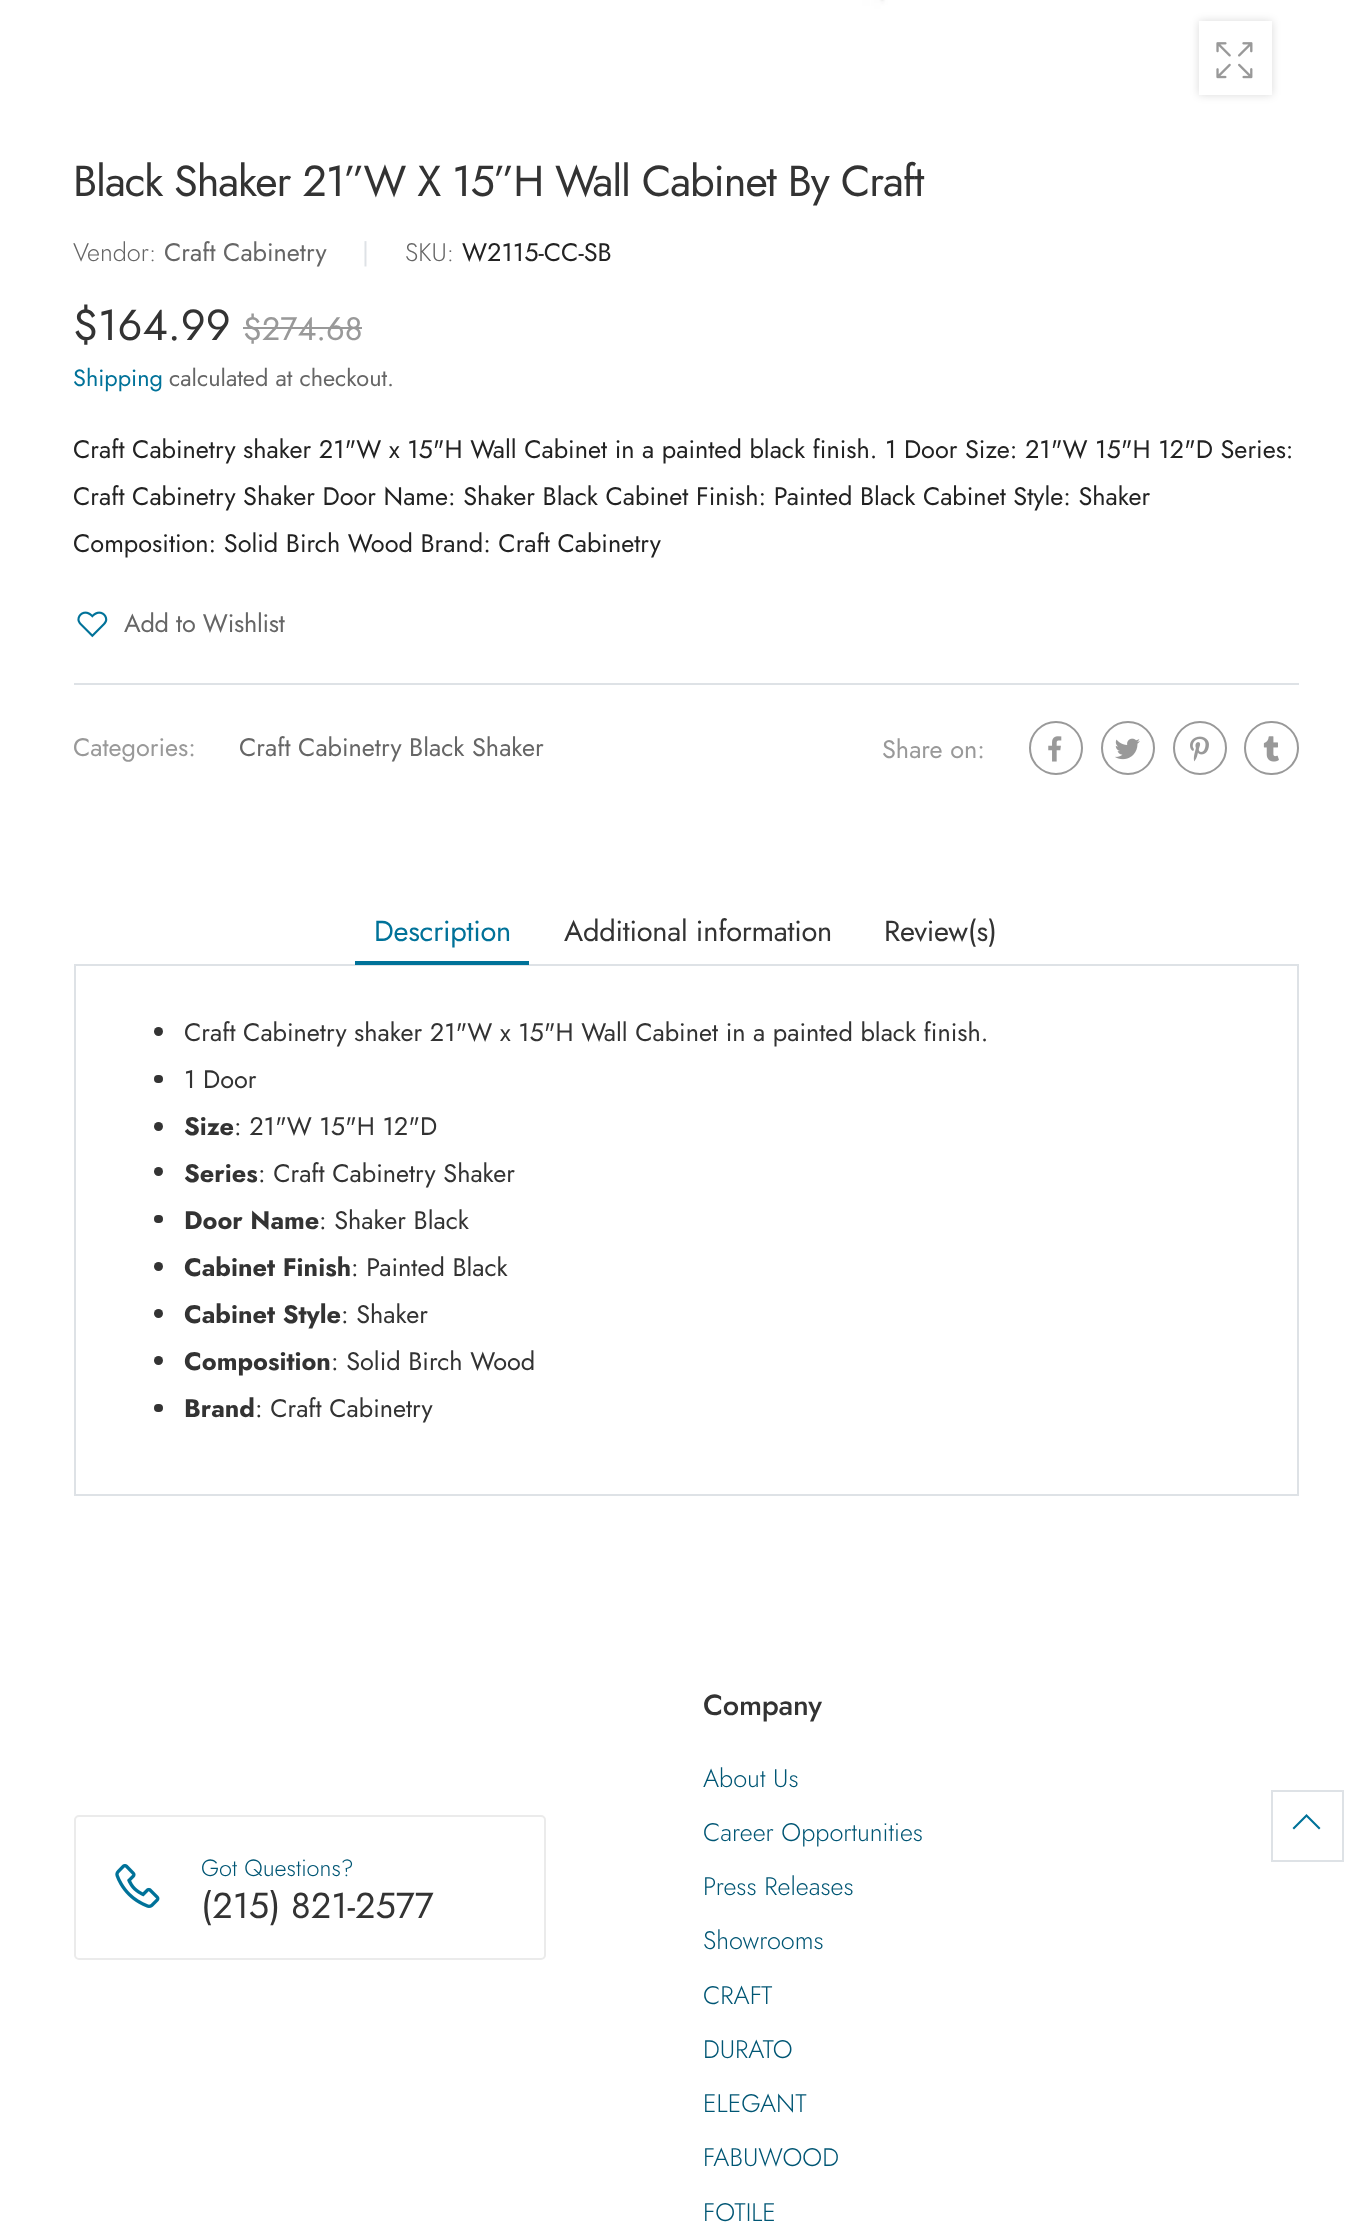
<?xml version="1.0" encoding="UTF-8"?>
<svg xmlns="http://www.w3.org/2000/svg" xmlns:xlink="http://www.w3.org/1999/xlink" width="1369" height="2238">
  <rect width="100%" height="100%" fill="#ffffff" />
  <image x="56" y="0" width="1260" height="121" xlink:href="image1.png" />
  <rect x="1199" y="21" width="73" height="74" fill="#000000" fill-opacity="0.15" filter="blur(4.5px)" />
  <rect x="1199" y="21" width="73" height="74" fill="#ffffff" />
  <image x="1216" y="42" width="37" height="37" xlink:href="image2.png" />
  <rect x="243" y="327" width="119" height="2" fill="#999999" />
  <image x="77" y="611" width="31" height="27" xlink:href="image3.png" />
  <rect x="74" y="683" width="1225" height="2" fill="#dee2e6" />
  <circle cx="1056" cy="748" r="26" fill="none" stroke="#999999" stroke-width="2" />
  <image x="1048" y="736" width="14" height="26" xlink:href="image4.png" />
  <circle cx="1128" cy="748" r="26" fill="none" stroke="#999999" stroke-width="2" />
  <image x="1115" y="738" width="25" height="22" xlink:href="image5.png" />
  <circle cx="1200" cy="748" r="26" fill="none" stroke="#999999" stroke-width="2" />
  <image x="1190" y="736" width="19" height="26" xlink:href="image6.png" />
  <rect x="1245" y="722" width="53" height="52" rx="26" fill="none" stroke="#999999" stroke-width="2" />
  <image x="1263" y="736" width="16" height="26" xlink:href="image7.png" />
  <rect x="75" y="965" width="1223" height="530" fill="none" stroke="#dee2e6" stroke-width="2" />
  <rect x="355" y="961" width="174" height="4" fill="#007299" />
  <circle cx="158.5" cy="1031.5" r="4.5" fill="#333333" />
  <rect x="154" y="1075" width="9" height="8" rx="4" fill="#333333" />
  <circle cx="158.5" cy="1126.5" r="4.5" fill="#333333" />
  <circle cx="158.5" cy="1171.5" r="4.5" fill="#333333" />
  <rect x="154" y="1215" width="9" height="8" rx="4" fill="#333333" />
  <circle cx="158.5" cy="1266.5" r="4.5" fill="#333333" />
  <circle cx="158.5" cy="1313.5" r="4.5" fill="#333333" />
  <circle cx="158.5" cy="1360.5" r="4.5" fill="#333333" />
  <rect x="154" y="1404" width="9" height="8" rx="4" fill="#333333" />
  <rect x="75" y="1816" width="470" height="143" rx="4" fill="none" stroke="#ebebeb" stroke-width="2" />
  <image x="115" y="1864" width="45" height="44" xlink:href="image8.png" />
  <rect x="1272" y="1791" width="71" height="70" fill="none" stroke="#dee2e6" stroke-width="2" />
  <path d="M 1306.5 1814 l 14 14 l -1.5 1.5 l -12.5 -12.5 l -12.5 12.5 l -1.5 -1.5 z" fill="#007299" />
  <text x="73" y="196" style="font-family: Jost; font-size: 43.3px; letter-spacing: -1.1px; fill: #333333">Black Shaker 21”W X 15”H Wall Cabinet By Craft</text>
  <text x="73" y="261" style="font-family: Jost; font-size: 25.3px; font-weight: 300; fill: #666666">Vendor:</text>
  <text x="164" y="261" style="font-family: Jost; font-size: 25.3px; fill: #666666">Craft Cabinetry</text>
  <text x="362" y="261" style="font-family: Jost; font-size: 25.3px; fill: #dee2e6">|</text>
  <text x="405" y="261" style="font-family: Jost; font-size: 25.3px; font-weight: 300; fill: #666666">SKU:</text>
  <text x="462" y="261" style="font-family: Jost; font-size: 25.3px; fill: #222222">W2115-CC-SB</text>
  <text x="73" y="340" style="font-family: Jost; font-size: 43.3px; fill: #333333">$164.99</text>
  <text x="243" y="340" style="font-family: Jost; font-size: 32.5px; fill: #999999">$274.68</text>
  <text x="73" y="386" style="font-family: Jost; font-size: 23.5px; fill: #007299">Shipping</text>
  <text x="169" y="386" style="font-family: Jost; font-size: 23.5px; fill: #666666">calculated at checkout.</text>
  <text x="73" y="458" style="font-family: Jost; font-size: 25.3px; fill: #222222">Craft Cabinetry shaker 21"W x 15"H Wall Cabinet in a painted black finish. 1 Door Size: 21"W 15"H 12"D Series:</text>
  <text x="73" y="505" style="font-family: Jost; font-size: 25.3px; fill: #222222">Craft Cabinetry Shaker Door Name: Shaker Black Cabinet Finish: Painted Black Cabinet Style: Shaker</text>
  <text x="73" y="552" style="font-family: Jost; font-size: 25.3px; fill: #222222">Composition: Solid Birch Wood Brand: Craft Cabinetry</text>
  <text x="124" y="632" style="font-family: Jost; font-size: 25.3px; letter-spacing: -0.25px; fill: #666666">Add to Wishlist</text>
  <text x="73" y="756" style="font-family: Jost; font-size: 25.3px; fill: #999999">Categories:</text>
  <text x="239" y="756" style="font-family: Jost; font-size: 25.3px; fill: #666666">Craft Cabinetry Black Shaker</text>
  <text x="882" y="758" style="font-family: Jost; font-size: 25.3px; fill: #999999">Share on:</text>
  <text x="374" y="941" style="font-family: Jost; font-size: 29px; letter-spacing: -0.25px; fill: #007299">Description</text>
  <text x="564" y="941" style="font-family: Jost; font-size: 29px; letter-spacing: -0.25px; fill: #333333">Additional information</text>
  <text x="884" y="941" style="font-family: Jost; font-size: 29px; letter-spacing: -0.25px; fill: #333333">Review(s)</text>
  <text x="184" y="1041" style="font-family: Jost; font-size: 25.3px; fill: #333333">Craft Cabinetry shaker 21"W x 15"H Wall Cabinet in a painted black finish.</text>
  <text x="184" y="1088" style="font-family: Jost; font-size: 25.3px; fill: #333333">1 Door</text>
  <text x="184" y="1135" style="font-family: Jost; font-size: 25.3px; font-weight: bold; fill: #333333">Size</text>
  <text x="234" y="1135" style="font-family: Jost; font-size: 25.3px; fill: #333333">: 21"W 15"H 12"D</text>
  <text x="184" y="1182" style="font-family: Jost; font-size: 25.3px; font-weight: bold; fill: #333333">Series</text>
  <text x="258" y="1182" style="font-family: Jost; font-size: 25.3px; fill: #333333">: Craft Cabinetry Shaker</text>
  <text x="184" y="1229" style="font-family: Jost; font-size: 25.3px; font-weight: bold; fill: #333333">Door Name</text>
  <text x="319" y="1229" style="font-family: Jost; font-size: 25.3px; fill: #333333">: Shaker Black</text>
  <text x="184" y="1276" style="font-family: Jost; font-size: 25.3px; font-weight: bold; fill: #333333">Cabinet Finish</text>
  <text x="351" y="1276" style="font-family: Jost; font-size: 25.3px; fill: #333333">: Painted Black</text>
  <text x="184" y="1323" style="font-family: Jost; font-size: 25.3px; font-weight: bold; fill: #333333">Cabinet Style</text>
  <text x="341" y="1323" style="font-family: Jost; font-size: 25.3px; fill: #333333">: Shaker</text>
  <text x="184" y="1370" style="font-family: Jost; font-size: 25.3px; font-weight: bold; fill: #333333">Composition</text>
  <text x="331" y="1370" style="font-family: Jost; font-size: 25.3px; fill: #333333">: Solid Birch Wood</text>
  <text x="184" y="1417" style="font-family: Jost; font-size: 25.3px; font-weight: bold; fill: #333333">Brand</text>
  <text x="255" y="1417" style="font-family: Jost; font-size: 25.3px; fill: #333333">: Craft Cabinetry</text>
  <text x="201" y="1876" style="font-family: Jost; font-size: 23.5px; font-weight: 300; fill: #005674">Got Questions?</text>
  <text x="201" y="1918" style="font-family: Jost; font-size: 36px; fill: #333333">(215) 821-2577</text>
  <text x="703" y="1715" style="font-family: Jost; font-size: 29px; font-weight: 500; letter-spacing: -0.25px; fill: #333333">Company</text>
  <text x="703" y="1787" style="font-family: Jost; font-size: 25.3px; font-weight: 300; fill: #005674">About Us</text>
  <text x="703" y="1841" style="font-family: Jost; font-size: 25.3px; font-weight: 300; fill: #005674">Career Opportunities</text>
  <text x="703" y="1895" style="font-family: Jost; font-size: 25.3px; font-weight: 300; fill: #005674">Press Releases</text>
  <text x="703" y="1949" style="font-family: Jost; font-size: 25.3px; font-weight: 300; fill: #005674">Showrooms</text>
  <text x="703" y="2004" style="font-family: Jost; font-size: 25.3px; font-weight: 300; fill: #005674">CRAFT</text>
  <text x="703" y="2058" style="font-family: Jost; font-size: 25.3px; font-weight: 300; fill: #005674">DURATO</text>
  <text x="703" y="2112" style="font-family: Jost; font-size: 25.3px; font-weight: 300; fill: #005674">ELEGANT</text>
  <text x="703" y="2166" style="font-family: Jost; font-size: 25.3px; font-weight: 300; fill: #005674">FABUWOOD</text>
  <text x="703" y="2221" style="font-family: Jost; font-size: 25.3px; font-weight: 300; fill: #005674">FOTILE</text>
</svg>
